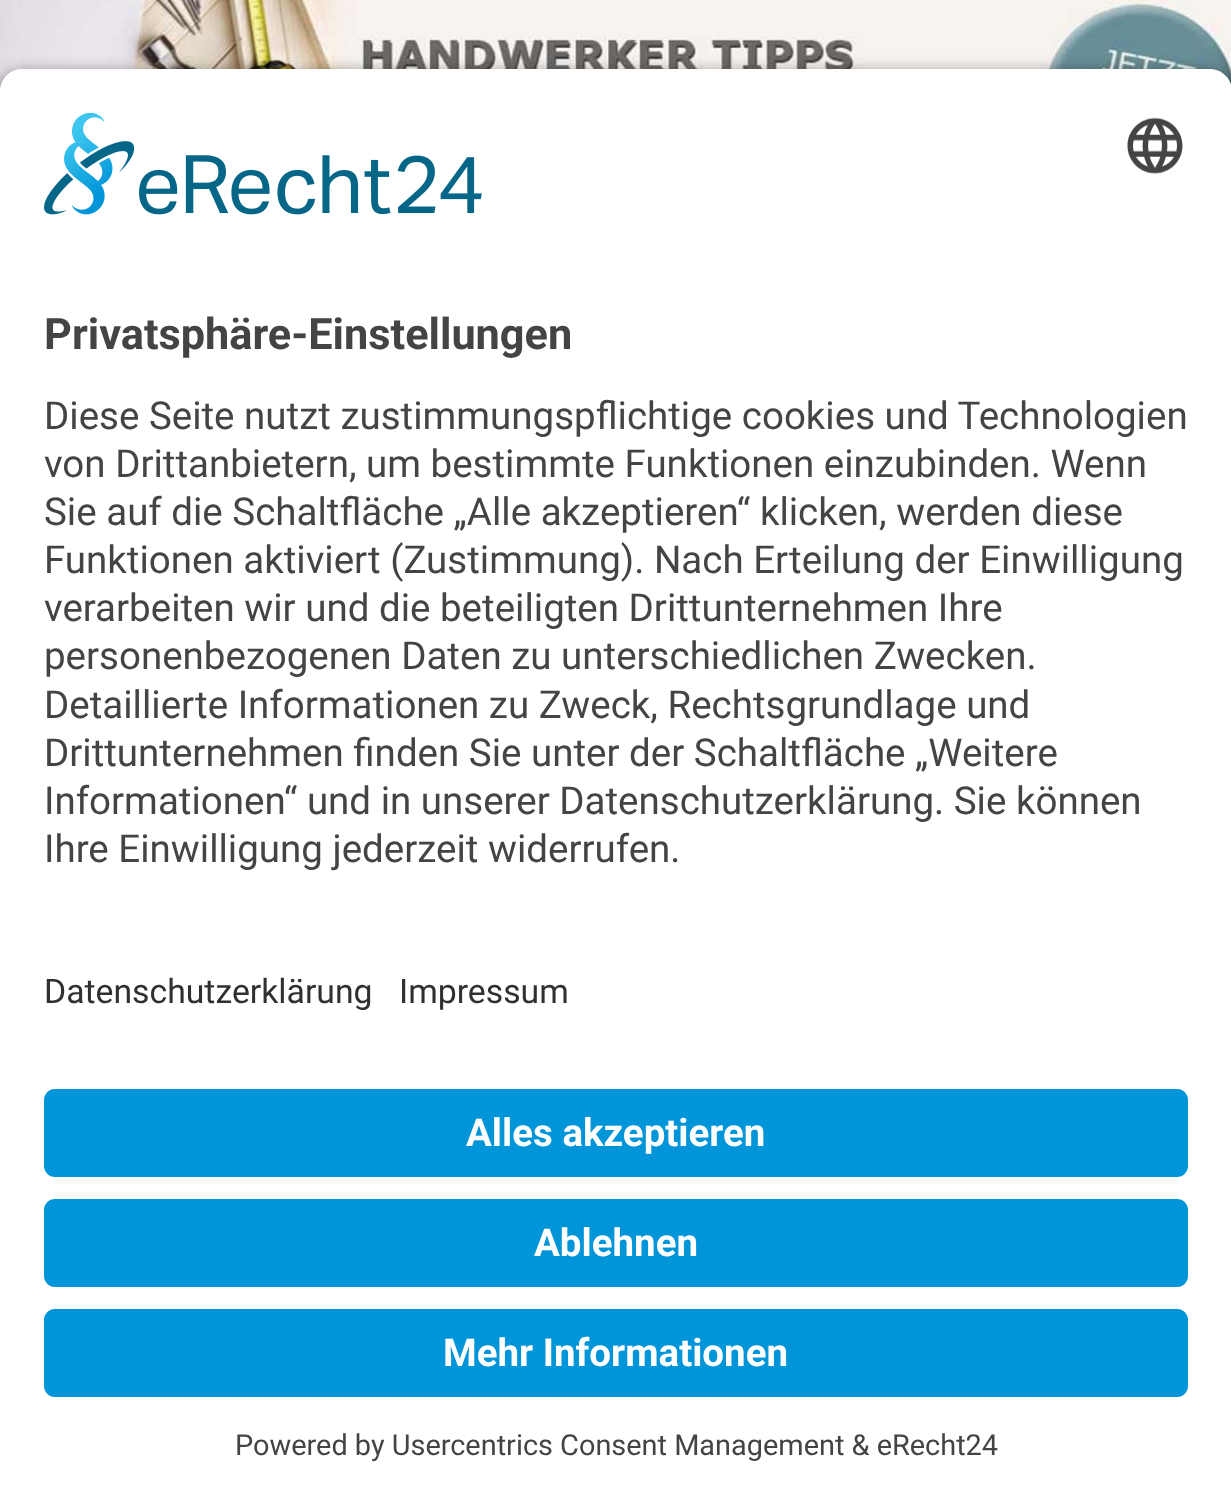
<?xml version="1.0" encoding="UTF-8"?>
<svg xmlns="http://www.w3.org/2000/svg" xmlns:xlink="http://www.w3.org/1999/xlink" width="1231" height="1507">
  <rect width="100%" height="100%" fill="#ffffff" />
  <image x="0" y="0" width="1231" height="91" xlink:href="image1.png" />
  <rect y="77" width="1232" height="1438" rx="22" fill="#000000" fill-opacity="0.8" filter="blur(9.5px)" />
  <path d="M 22 69 h 1188 c 12 0 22 10 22 22 v 839 h -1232 v -839 c 0 -12 10 -22 22 -22 z" fill="#ffffff" />
  <image x="44" y="113" width="438" height="102" xlink:href="image2.png" />
  <image x="1127" y="117" width="56" height="57" xlink:href="image3.png" />
  <rect y="930" width="1231" height="577" fill="#ffffff" />
  <rect x="44" y="1089" width="1144" height="88" rx="11" fill="#0094d8" />
  <rect x="44" y="1199" width="1144" height="88" rx="11" fill="#0094d8" />
  <rect x="44" y="1309" width="1144" height="88" rx="11" fill="#0094d8" />
  <text x="44" y="349" style="font-family: Roboto; font-size: 43.25px; font-weight: bold; fill: #444444">Privatsphäre-Einstellungen</text>
  <text x="44" y="429" style="font-family: Roboto; font-size: 38.5px; fill: #444444">Diese Seite nutzt zustimmungspflichtige cookies und Technologien</text>
  <text x="44" y="477" style="font-family: Roboto; font-size: 38.5px; fill: #444444">von Drittanbietern, um bestimmte Funktionen einzubinden. Wenn</text>
  <text x="44" y="525" style="font-family: Roboto; font-size: 38.5px; fill: #444444">Sie auf die Schaltfläche „Alle akzeptieren“ klicken, werden diese</text>
  <text x="44" y="573" style="font-family: Roboto; font-size: 38.5px; fill: #444444">Funktionen aktiviert (Zustimmung). Nach Erteilung der Einwilligung</text>
  <text x="44" y="621" style="font-family: Roboto; font-size: 38.5px; fill: #444444">verarbeiten wir und die beteiligten Drittunternehmen Ihre</text>
  <text x="44" y="669" style="font-family: Roboto; font-size: 38.5px; fill: #444444">personenbezogenen Daten zu unterschiedlichen Zwecken.</text>
  <text x="44" y="718" style="font-family: Roboto; font-size: 38.5px; fill: #444444">Detaillierte Informationen zu Zweck, Rechtsgrundlage und</text>
  <text x="44" y="766" style="font-family: Roboto; font-size: 38.5px; fill: #444444">Drittunternehmen finden Sie unter der Schaltfläche „Weitere</text>
  <text x="44" y="814" style="font-family: Roboto; font-size: 38.5px; fill: #444444">Informationen“ und in unserer Datenschutzerklärung. Sie können</text>
  <text x="44" y="862" style="font-family: Roboto; font-size: 38.5px; fill: #444444">Ihre Einwilligung jederzeit widerrufen.</text>
  <text x="44" y="1003" style="font-family: Roboto; font-size: 33.75px; fill: #303030">Datenschutzerklärung</text>
  <text x="399" y="1003" style="font-family: Roboto; font-size: 33.75px; fill: #303030">Impressum</text>
  <text x="466" y="1146" style="font-family: Roboto; font-size: 38.5px; font-weight: bold; fill: #ffffff">Alles akzeptieren</text>
  <text x="534" y="1256" style="font-family: Roboto; font-size: 38.5px; font-weight: bold; fill: #ffffff">Ablehnen</text>
  <text x="443" y="1366" style="font-family: Roboto; font-size: 38.5px; font-weight: bold; fill: #ffffff">Mehr Informationen</text>
  <text x="235" y="1455" style="font-family: Roboto; font-size: 28.9px; fill: #444444">Powered by Usercentrics Consent Management &amp; eRecht24</text>
</svg>
